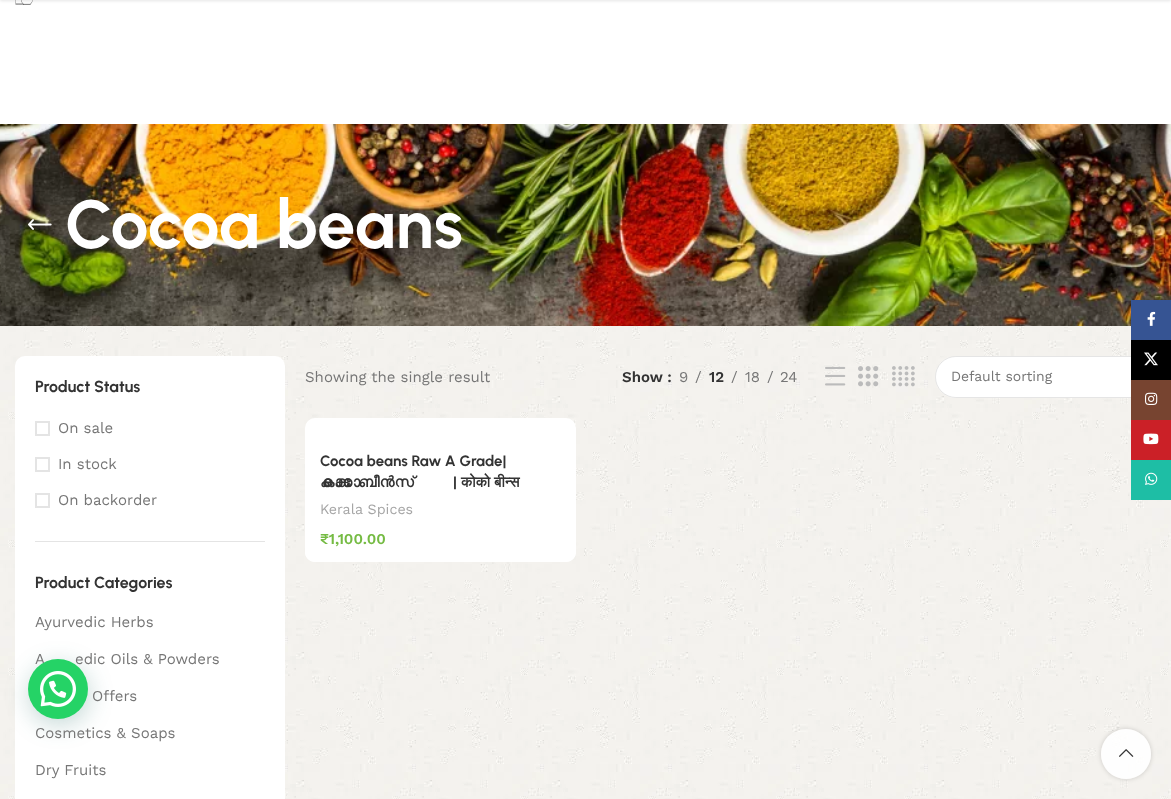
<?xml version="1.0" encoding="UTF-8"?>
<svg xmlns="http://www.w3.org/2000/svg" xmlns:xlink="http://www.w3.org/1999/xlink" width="1171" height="799">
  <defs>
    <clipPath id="clip1"><path d="M 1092 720 h 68 v 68 h -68 z m 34 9 c 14 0 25 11 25 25 c 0 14 -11 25 -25 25 c -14 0 -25 -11 -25 -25 c 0 -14 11 -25 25 -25 z" clip-rule="evenodd" /></clipPath>
  </defs>
  <rect width="100%" height="100%" fill="#ffffff" />
  <rect y="-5" width="1171" height="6" fill="#000000" fill-opacity="0.1" filter="blur(1.5px)" />
  <image x="15" y="0" width="18" height="5" xlink:href="image1.png" />
  <image x="0" y="326" width="1171" height="473" xlink:href="image2.png" />
  <image x="0" y="124" width="1171" height="202" xlink:href="image3.png" />
  <image x="28" y="219" width="24" height="11" xlink:href="image4.png" />
  <rect x="15" y="356" width="270" height="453" rx="10" fill="#ffffff" />
  <rect x="35" y="541" width="230" height="1" fill="#e4e4e4" />
  <rect x="36" y="422" width="13" height="13" fill="none" stroke="#e4e4e4" stroke-width="2" />
  <rect x="36" y="458" width="13" height="13" fill="none" stroke="#e4e4e4" stroke-width="2" />
  <rect x="36" y="494" width="13" height="13" fill="none" stroke="#e4e4e4" stroke-width="2" />
  <image x="825" y="366" width="21" height="20" xlink:href="image5.png" />
  <image x="858" y="366" width="21" height="21" xlink:href="image6.png" />
  <image x="892" y="366" width="23" height="21" xlink:href="image7.png" />
  <rect x="935" y="356" width="221" height="42" rx="21" fill="#ffffff" />
  <rect x="935.5" y="356.5" width="220" height="41" rx="20.5" fill="none" stroke="#000000" stroke-opacity="0.1" />
  <rect x="305" y="418" width="271" height="144" rx="10" fill="#ffffff" />
  <path d="M 305 439 h 271 v 113 c 0 5.5 -4.5 10 -10 10 h -251 c -5.5 0 -10 -4.5 -10 -10 z" fill="#ffffff" />
  <rect x="1131" y="300" width="40" height="40" fill="#365493" />
  <image x="1147" y="311" width="9" height="15" xlink:href="image8.png" />
  <rect x="1131" y="340" width="40" height="40" fill="#000000" />
  <image x="1144" y="352" width="14" height="14" xlink:href="image9.png" />
  <rect x="1131" y="380" width="40" height="40" fill="#774430" />
  <image x="1145" y="392" width="13" height="13" xlink:href="image10.png" />
  <rect x="1131" y="420" width="40" height="40" fill="#cb2027" />
  <image x="1143" y="433" width="16" height="12" xlink:href="image11.png" />
  <rect x="1131" y="460" width="40" height="40" fill="#1ebea5" />
  <image x="1145" y="472" width="13" height="13" xlink:href="image12.png" />
  <rect x="29" y="665" width="60" height="60" rx="30" fill="#075e54" fill-opacity="0.24" filter="blur(12px)" />
  <g clip-path="url(#clip1)">
    <rect x="1101" y="729" width="50" height="50" rx="25" fill="#000000" fill-opacity="0.17" filter="blur(2.5px)" />
  </g>
  <circle cx="1126" cy="754" r="25" fill="#ffffff" fill-opacity="0.9" />
  <image x="1119" y="749" width="15" height="8" xlink:href="image14.png" />
  <text x="65" y="248" style="font-family: Urbanist; font-size: 68px; font-weight: bold; fill: #ffffff">Cocoa beans</text>
  <text x="35" y="392" style="font-family: Urbanist; font-size: 16px; font-weight: bold; fill: #333333">Product Status</text>
  <text x="58" y="433" style="font-family: Work Sans; font-size: 15px; fill: #767676">On sale</text>
  <text x="58" y="469" style="font-family: Work Sans; font-size: 15px; fill: #767676">In stock</text>
  <text x="58" y="505" style="font-family: Work Sans; font-size: 15px; fill: #767676">On backorder</text>
  <text x="35" y="588" style="font-family: Urbanist; font-size: 16px; font-weight: bold; fill: #333333">Product Categories</text>
  <text x="35" y="627" style="font-family: Work Sans; font-size: 15px; fill: #767676">Ayurvedic Herbs</text>
  <text x="35" y="664" style="font-family: Work Sans; font-size: 15px; fill: #767676">A</text>
  <text x="75" y="664" style="font-family: Work Sans; font-size: 15px; fill: #767676">edic Oils &amp; Powders</text>
  <text x="92" y="701" style="font-family: Work Sans; font-size: 15px; fill: #767676">Offers</text>
  <text x="35" y="738" style="font-family: Work Sans; font-size: 15px; fill: #767676">Cosmetics &amp; Soaps</text>
  <text x="35" y="775" style="font-family: Work Sans; font-size: 15px; fill: #767676">Dry Fruits</text>
  <text x="305" y="382" style="font-family: Work Sans; font-size: 15px; fill: #767676">Showing the single result</text>
  <text x="622" y="382" style="font-family: Work Sans; font-size: 15px; font-weight: 600; fill: #333333">Show :</text>
  <text x="679" y="382" style="font-family: Work Sans; font-size: 15px; fill: #767676">9</text>
  <text x="695" y="382" style="font-family: Work Sans; font-size: 15px; fill: #767676">/</text>
  <text x="709" y="382" style="font-family: Work Sans; font-size: 15px; font-weight: 600; fill: #333333">12</text>
  <text x="731" y="382" style="font-family: Work Sans; font-size: 15px; fill: #767676">/</text>
  <text x="745" y="382" style="font-family: Work Sans; font-size: 15px; fill: #767676">18</text>
  <text x="767" y="382" style="font-family: Work Sans; font-size: 15px; fill: #767676">/</text>
  <text x="780" y="382" style="font-family: Work Sans; font-size: 15px; fill: #767676">24</text>
  <text x="951" y="381" style="font-family: Work Sans; font-size: 14px; fill: #767676">Default sorting</text>
  <text x="320" y="466" style="font-family: Urbanist; font-size: 15px; font-weight: bold; fill: #333333">Cocoa beans Raw A Grade|</text>
  <text x="320" y="487" style="font-family: FreeSans; font-size: 15px; font-weight: bold; fill: #333333">കൊക്കോ ബീൻസ്</text>
  <text x="453" y="487" style="font-family: Urbanist; font-size: 15px; font-weight: bold; fill: #333333">|</text>
  <text x="461" y="487" style="font-family: FreeSans; font-size: 15px; font-weight: bold; fill: #333333">कोको बीन्स</text>
  <text x="320" y="514" style="font-family: Work Sans; font-size: 14.25px; fill: #a5a5a5">Kerala Spices</text>
  <text x="320" y="544" style="font-family: Work Sans; font-size: 15px; font-weight: 600; fill: #75bb43">₹1,100.00</text>
  <circle cx="58" cy="689" r="30" fill="#25d366" />
  <image x="40" y="671" width="36" height="36" xlink:href="image13.png" />
</svg>
